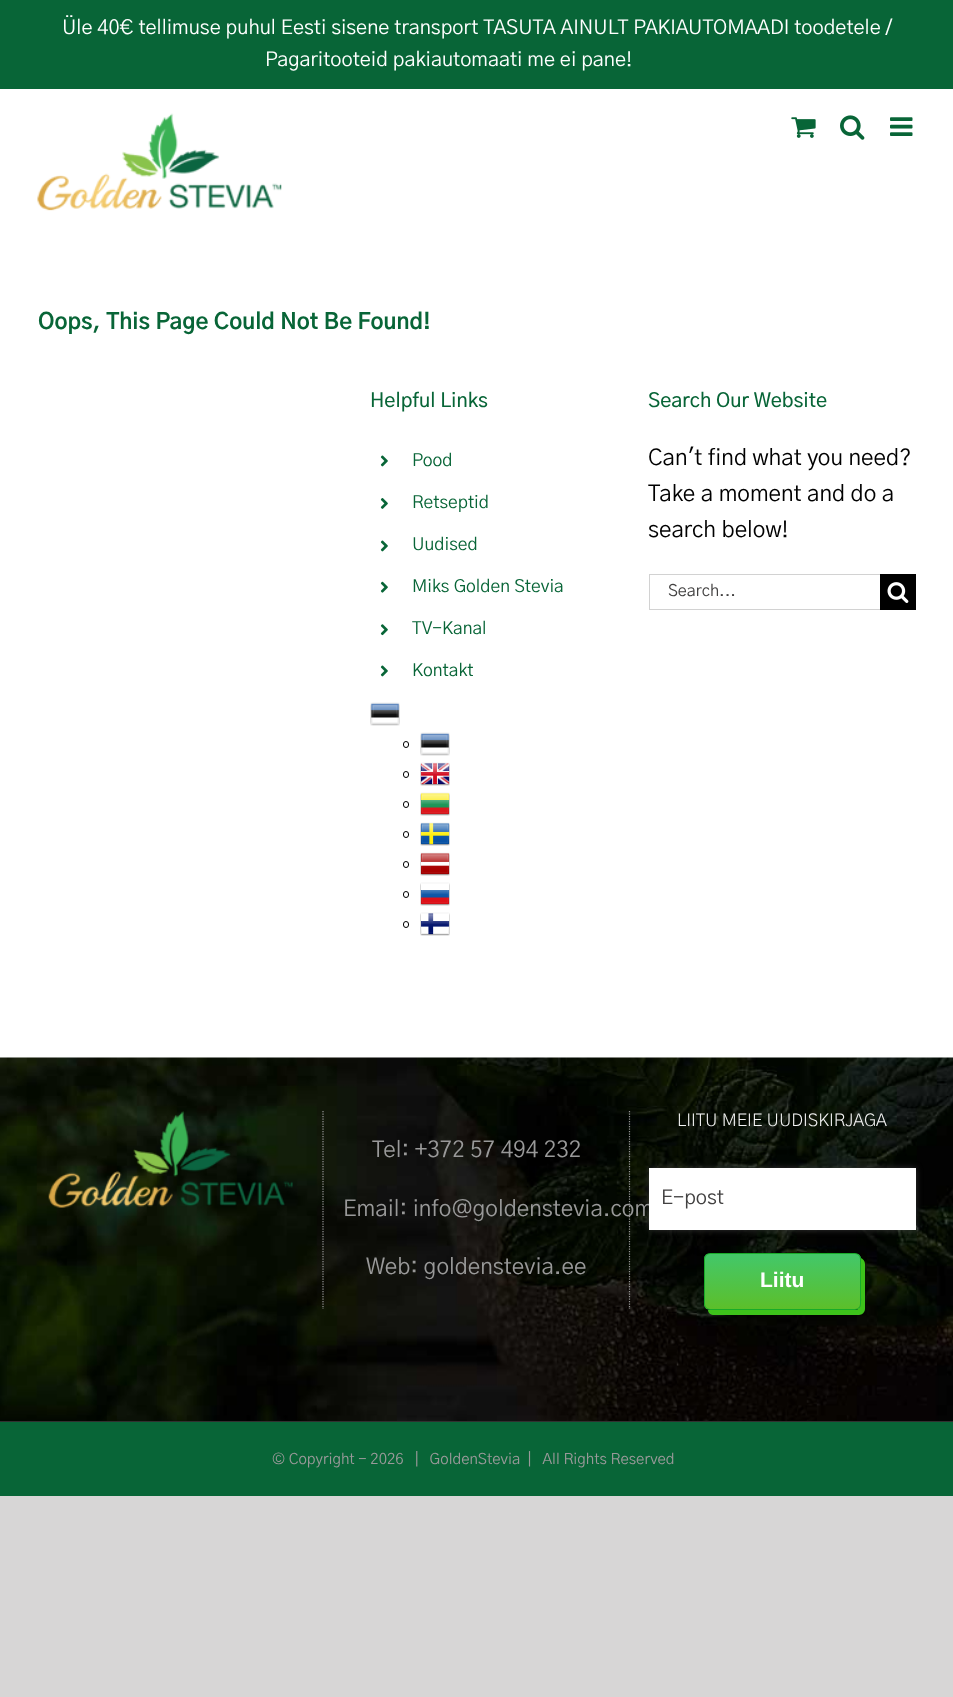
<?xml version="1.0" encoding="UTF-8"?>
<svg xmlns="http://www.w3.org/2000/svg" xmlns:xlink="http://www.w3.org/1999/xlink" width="953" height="1697">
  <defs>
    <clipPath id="clip1"><rect x="704" y="1253" width="157" height="57" rx="6" /></clipPath>
    <linearGradient id="g1" gradientUnits="userSpaceOnUse" x1="783" y1="1254" x2="783" y2="1309"><stop offset="0.05" stop-color="#44c767" /><stop offset="1" stop-color="#5cbf2a" /></linearGradient>
  </defs>
  <rect width="100%" height="100%" fill="#d7d6d6" />
  <rect width="953" height="89" fill="#086537" />
  <rect y="89" width="953" height="969" fill="#ffffff" />
  <image x="37" y="113" width="245" height="98" xlink:href="image1.png" />
  <image x="791" y="117" width="25" height="21" xlink:href="image2.png" />
  <image x="840" y="115" width="25" height="25" xlink:href="image3.png" />
  <image x="890" y="117" width="23" height="19" xlink:href="image4.png" />
  <image x="380" y="455" width="8" height="12" xlink:href="image5.png" />
  <image x="380" y="498" width="8" height="11" xlink:href="image6.png" />
  <image x="380" y="540" width="8" height="12" xlink:href="image5.png" />
  <image x="380" y="581" width="8" height="12" xlink:href="image7.png" />
  <image x="380" y="624" width="8" height="12" xlink:href="image8.png" />
  <image x="380" y="665" width="8" height="12" xlink:href="image5.png" />
  <image x="370" y="702" width="30" height="24" xlink:href="image9.png" />
  <rect x="403.5" y="741.5" width="5" height="6" rx="2.5" fill="none" stroke="#000000" />
  <image x="420" y="732" width="30" height="24" xlink:href="image10.png" />
  <rect x="403.5" y="771.5" width="5" height="6" rx="2.5" fill="none" stroke="#000000" />
  <image x="420" y="762" width="30" height="24" xlink:href="image11.png" />
  <rect x="403.5" y="801.5" width="5" height="6" rx="2.5" fill="none" stroke="#000000" />
  <image x="420" y="792" width="30" height="24" xlink:href="image12.png" />
  <rect x="403.5" y="831.5" width="5" height="6" rx="2.5" fill="none" stroke="#000000" />
  <image x="420" y="822" width="30" height="24" xlink:href="image13.png" />
  <rect x="403.5" y="861.5" width="5" height="6" rx="2.5" fill="none" stroke="#000000" />
  <image x="420" y="852" width="30" height="24" xlink:href="image14.png" />
  <rect x="403.5" y="891.5" width="5" height="6" rx="2.5" fill="none" stroke="#000000" />
  <image x="420" y="882" width="30" height="24" xlink:href="image15.png" />
  <rect x="403.5" y="921.5" width="5" height="6" rx="2.5" fill="none" stroke="#000000" />
  <image x="420" y="912" width="30" height="24" xlink:href="image16.png" />
  <rect x="649" y="574" width="231" height="1" fill="#d2d2d2" />
  <rect x="649" y="609" width="231" height="1" fill="#d2d2d2" />
  <rect x="649" y="574" width="1" height="36" fill="#d2d2d2" />
  <rect x="880" y="574" width="36" height="36" fill="#000000" />
  <image x="887" y="582" width="22" height="21" xlink:href="image17.png" />
  <image x="0" y="1057" width="953" height="364" xlink:href="image18.png" />
  <path d="M 323 1111 v 198" fill="none" stroke="#999999" stroke-width="1.2" stroke-dasharray="1.25 1.25" />
  <image x="48" y="1111" width="245" height="97" xlink:href="image19.png" />
  <path d="M 629.5 1111 v 198" fill="none" stroke="#999999" stroke-width="1.2" stroke-dasharray="1.25 1.25" />
  <rect x="649" y="1168" width="267" height="62" fill="#424242" fill-opacity="0.75" filter="blur(3px)" />
  <path d="M 708 1310 c 0 3 3 5 6 5 h 145 c 3 0 6 -3 6 -6 v -45 c 0 -3 -2 -5 -4 -6 v 38 c 0 5 1 14 -6 14 z" fill="#3dc21b" />
  <g clip-path="url(#clip1)">
    <rect x="704" y="1254" width="157" height="55" fill="url(#g1)" />
  </g>
  <rect x="704.5" y="1253.5" width="156" height="56" rx="5.5" fill="none" stroke="#18ab29" />
  <rect y="1422" width="953" height="74" fill="#086537" />
  <rect y="1421" width="953" height="1" fill="#303030" />
  <text x="62" y="34" style="font-family: 'Gothic A1'; font-size: 20px; fill: #ffffff">Üle 40€ tellimuse puhul Eesti sisene transport TASUTA AINULT PAKIAUTOMAADI toodetele /</text>
  <text x="265" y="66" style="font-family: 'Gothic A1'; font-size: 20px; fill: #ffffff">Pagaritooteid pakiautomaati me ei pane!</text>
  <text x="38" y="329" style="font-family: 'Gothic A1'; font-size: 22.1px; font-weight: bold; fill: #086537">Oops, This Page Could Not Be Found!</text>
  <text x="370" y="407" style="font-family: 'Gothic A1'; font-size: 19.75px; font-weight: 500; fill: #086537">Helpful Links</text>
  <text x="412" y="466" style="font-family: 'Gothic A1'; font-size: 17.5px; fill: #086537">Pood</text>
  <text x="412" y="508" style="font-family: 'Gothic A1'; font-size: 17.5px; fill: #086537">Retseptid</text>
  <text x="412" y="550" style="font-family: 'Gothic A1'; font-size: 17.5px; fill: #086537">Uudised</text>
  <text x="412" y="592" style="font-family: 'Gothic A1'; font-size: 17.5px; fill: #086537">Miks Golden Stevia</text>
  <text x="412" y="634" style="font-family: 'Gothic A1'; font-size: 17.5px; fill: #086537">TV-Kanal</text>
  <text x="412" y="676" style="font-family: 'Gothic A1'; font-size: 17.5px; fill: #086537">Kontakt</text>
  <text x="648" y="407" style="font-family: 'Gothic A1'; font-size: 19.75px; font-weight: 500; fill: #086537">Search Our Website</text>
  <text x="648" y="465" style="font-family: 'Gothic A1'; font-size: 22.5px; fill: #000000">Can't find what you need?</text>
  <text x="648" y="501" style="font-family: 'Gothic A1'; font-size: 22.5px; fill: #000000">Take a moment and do a</text>
  <text x="648" y="537" style="font-family: 'Gothic A1'; font-size: 22.5px; fill: #000000">search below!</text>
  <text x="668" y="596" style="font-family: 'Gothic A1'; font-size: 16.25px; fill: #424141">Search...</text>
  <text x="372" y="1157" style="font-family: 'Gothic A1'; font-size: 22.5px; fill: #999999">Tel: +372 57 494 232</text>
  <text x="343" y="1216" style="font-family: 'Gothic A1'; font-size: 22.5px; fill: #999999">Email: info@goldenstevia.com</text>
  <text x="366" y="1274" style="font-family: 'Gothic A1'; font-size: 22.5px; fill: #999999">Web: goldenstevia.ee</text>
  <text x="677" y="1126" style="font-family: 'Gothic A1'; font-size: 17.4px; font-weight: 300; fill: #f4f4f4">LIITU MEIE UUDISKIRJAGA</text>
  <rect x="649" y="1168" width="267" height="62" fill="#ffffff" />
  <text x="661" y="1204" style="font-family: 'Gothic A1'; font-size: 20px; fill: #424141">E-post</text>
  <text x="760" y="1287" style="font-family: Liberation Sans; font-size: 21px; font-weight: bold; fill: #ffffff">Liitu</text>
  <text x="272" y="1464" style="font-family: 'Gothic A1'; font-size: 15px; fill: #999999" xml:space="preserve">© Copyright - 2026   |   GoldenStevia  |   All Rights Reserved</text>
</svg>
